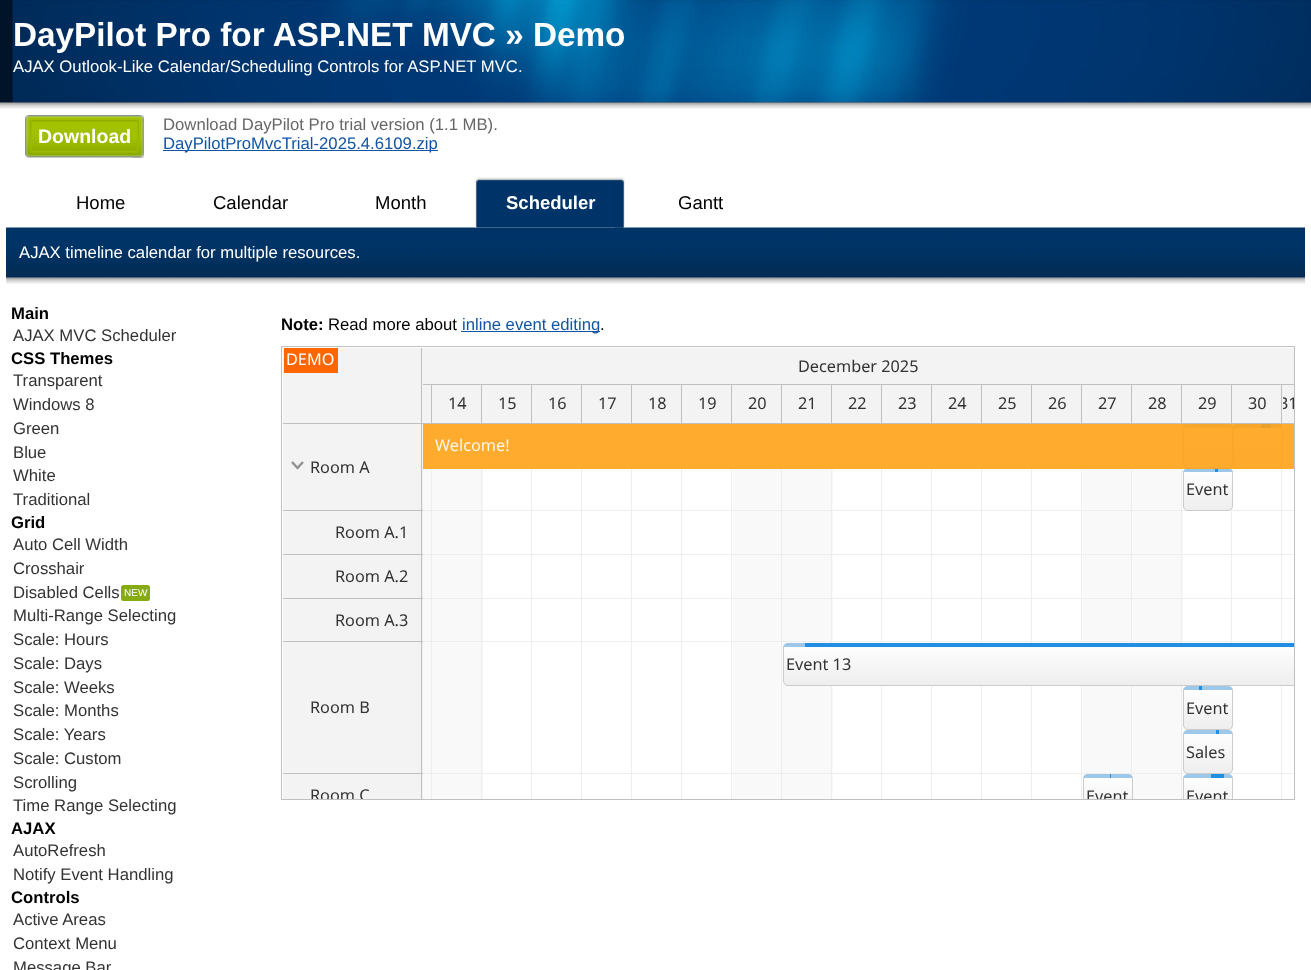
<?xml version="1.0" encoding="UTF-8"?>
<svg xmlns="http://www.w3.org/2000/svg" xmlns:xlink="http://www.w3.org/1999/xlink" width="1311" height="970">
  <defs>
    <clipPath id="clip1"><rect x="1183" y="424" width="50" height="44" rx="5" /></clipPath>
    <linearGradient id="g1" gradientUnits="userSpaceOnUse" x1="1208" y1="425" x2="1208" y2="466"><stop offset="0" stop-color="#ffffff" /><stop offset="1" stop-color="#eeeeee" /></linearGradient>
    <linearGradient id="g2" gradientUnits="userSpaceOnUse" x1="1208" y1="466" x2="1208" y2="508"><stop offset="0" stop-color="#ffffff" /><stop offset="1" stop-color="#eeeeee" /></linearGradient>
    <clipPath id="clip2"><rect x="1233" y="424" width="50" height="44" rx="5" /></clipPath>
    <linearGradient id="g3" gradientUnits="userSpaceOnUse" x1="1258" y1="425" x2="1258" y2="466"><stop offset="0" stop-color="#ffffff" /><stop offset="1" stop-color="#eeeeee" /></linearGradient>
    <linearGradient id="g4" gradientUnits="userSpaceOnUse" x1="1258" y1="466" x2="1258" y2="508"><stop offset="0" stop-color="#ffffff" /><stop offset="1" stop-color="#eeeeee" /></linearGradient>
    <clipPath id="clip3"><rect x="1183" y="468" width="50" height="43" rx="5" /></clipPath>
    <linearGradient id="g5" gradientUnits="userSpaceOnUse" x1="1208" y1="469" x2="1208" y2="510"><stop offset="0" stop-color="#ffffff" /><stop offset="1" stop-color="#eeeeee" /></linearGradient>
    <clipPath id="clip4"><rect x="783" y="643" width="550" height="43" rx="5" /></clipPath>
    <linearGradient id="g6" gradientUnits="userSpaceOnUse" x1="1058" y1="644" x2="1058" y2="685"><stop offset="0" stop-color="#ffffff" /><stop offset="1" stop-color="#eeeeee" /></linearGradient>
    <clipPath id="clip5"><rect x="423" y="424" width="871" height="375" /></clipPath>
    <clipPath id="clip6"><rect x="1183" y="686" width="50" height="44" rx="5" /></clipPath>
    <linearGradient id="g7" gradientUnits="userSpaceOnUse" x1="1208" y1="688" x2="1208" y2="729"><stop offset="0" stop-color="#ffffff" /><stop offset="1" stop-color="#eeeeee" /></linearGradient>
    <clipPath id="clip7"><rect x="1183" y="730" width="50" height="44" rx="5" /></clipPath>
    <linearGradient id="g8" gradientUnits="userSpaceOnUse" x1="1208" y1="731" x2="1208" y2="773"><stop offset="0" stop-color="#ffffff" /><stop offset="1" stop-color="#eeeeee" /></linearGradient>
    <clipPath id="clip8"><rect x="1083" y="774" width="50" height="44" rx="5" /></clipPath>
    <linearGradient id="g9" gradientUnits="userSpaceOnUse" x1="1108" y1="775" x2="1108" y2="816"><stop offset="0" stop-color="#ffffff" /><stop offset="1" stop-color="#eeeeee" /></linearGradient>
    <clipPath id="clip9"><rect x="1183" y="774" width="50" height="44" rx="5" /></clipPath>
    <linearGradient id="g10" gradientUnits="userSpaceOnUse" x1="1208" y1="775" x2="1208" y2="816"><stop offset="0" stop-color="#ffffff" /><stop offset="1" stop-color="#eeeeee" /></linearGradient>
    <clipPath id="clip10"><rect x="283" y="774" width="140" height="25" /></clipPath>
    <clipPath id="clip11"><rect x="1283" y="385" width="11" height="38" /></clipPath>
  </defs>
  <rect width="100%" height="100%" fill="#ffffff" />
  <rect width="1311" height="103" fill="#001328" />
  <image x="12" y="0" width="1299" height="103" xlink:href="image1.png" />
  <image x="0" y="102" width="1311" height="7" xlink:href="image2.png" />
  <image x="25" y="115" width="119" height="43" xlink:href="image3.png" />
  <image x="132" y="115" width="12" height="43" xlink:href="image4.png" />
  <rect x="163" y="150" width="275" height="1" fill="#1155a3" />
  <rect x="6" y="228" width="1299" height="50" fill="#013f7c" />
  <image x="6" y="227" width="1299" height="51" xlink:href="image7.png" />
  <image x="475" y="177" width="150" height="51" xlink:href="image5.png" />
  <image x="615" y="177" width="10" height="51" xlink:href="image6.png" />
  <image x="6" y="277" width="1299" height="7" xlink:href="image8.png" />
  <rect x="121" y="585" width="29" height="16" rx="2.5" fill="#87ab13" />
  <rect x="461" y="331" width="139" height="1" fill="#1155a3" />
  <rect x="281.5" y="346.5" width="1013" height="453" fill="none" stroke="#c0c0c0" />
  <rect x="283" y="348" width="1011" height="75" fill="#f3f3f3" />
  <rect x="284" y="348" width="54" height="25" fill="#ff6600" />
  <rect x="283" y="423" width="1011" height="1" fill="#c0c0c0" />
  <rect x="283" y="424" width="140" height="375" fill="#f3f3f3" />
  <path d="M 292 462 l 5.5 6 l 5.5 -6" fill="none" stroke="#939393" stroke-width="2.5" stroke-linejoin="round" />
  <rect x="283" y="510" width="140" height="1" fill="#c0c0c0" />
  <rect x="283" y="554" width="140" height="1" fill="#c0c0c0" />
  <rect x="283" y="598" width="140" height="1" fill="#c0c0c0" />
  <rect x="283" y="641" width="140" height="1" fill="#c0c0c0" />
  <rect x="283" y="773" width="140" height="1" fill="#c0c0c0" />
  <rect x="421" y="348" width="1" height="451" fill="#c0c0c0" />
  <rect x="423" y="384" width="871" height="1" fill="#c0c0c0" />
  <rect x="431" y="385" width="1" height="38" fill="#c0c0c0" />
  <rect x="481" y="385" width="1" height="38" fill="#c0c0c0" />
  <rect x="531" y="385" width="1" height="38" fill="#c0c0c0" />
  <rect x="581" y="385" width="1" height="38" fill="#c0c0c0" />
  <rect x="631" y="385" width="1" height="38" fill="#c0c0c0" />
  <rect x="681" y="385" width="1" height="38" fill="#c0c0c0" />
  <rect x="731" y="385" width="1" height="38" fill="#c0c0c0" />
  <rect x="781" y="385" width="1" height="38" fill="#c0c0c0" />
  <rect x="831" y="385" width="1" height="38" fill="#c0c0c0" />
  <rect x="881" y="385" width="1" height="38" fill="#c0c0c0" />
  <rect x="931" y="385" width="1" height="38" fill="#c0c0c0" />
  <rect x="981" y="385" width="1" height="38" fill="#c0c0c0" />
  <rect x="1031" y="385" width="1" height="38" fill="#c0c0c0" />
  <rect x="1081" y="385" width="1" height="38" fill="#c0c0c0" />
  <rect x="1131" y="385" width="1" height="38" fill="#c0c0c0" />
  <rect x="1181" y="385" width="1" height="38" fill="#c0c0c0" />
  <rect x="1231" y="385" width="1" height="38" fill="#c0c0c0" />
  <rect x="1281" y="385" width="1" height="38" fill="#c0c0c0" />
  <rect x="423" y="424" width="60" height="86" fill="#f9f9f9" />
  <rect x="733" y="424" width="100" height="86" fill="#f9f9f9" />
  <rect x="1083" y="424" width="100" height="86" fill="#f9f9f9" />
  <rect x="423" y="511" width="60" height="43" fill="#f9f9f9" />
  <rect x="733" y="511" width="100" height="43" fill="#f9f9f9" />
  <rect x="1083" y="511" width="100" height="43" fill="#f9f9f9" />
  <rect x="423" y="555" width="60" height="43" fill="#f9f9f9" />
  <rect x="733" y="555" width="100" height="43" fill="#f9f9f9" />
  <rect x="1083" y="555" width="100" height="43" fill="#f9f9f9" />
  <rect x="423" y="599" width="10" height="174" fill="#f9f9f9" />
  <rect x="433" y="599" width="50" height="174" fill="#f9f9f9" />
  <rect x="733" y="599" width="50" height="174" fill="#f9f9f9" />
  <rect x="783" y="599" width="50" height="174" fill="#f9f9f9" />
  <rect x="1083" y="599" width="100" height="44" fill="#f9f9f9" />
  <rect x="1083" y="686" width="100" height="87" fill="#f9f9f9" />
  <rect x="423" y="774" width="60" height="25" fill="#f9f9f9" />
  <rect x="733" y="774" width="100" height="25" fill="#f9f9f9" />
  <rect x="1083" y="774" width="50" height="5" fill="#f9f9f9" />
  <rect x="1133" y="774" width="50" height="25" fill="#f9f9f9" />
  <rect x="423" y="510" width="871" height="1" fill="#eeeeee" />
  <rect x="423" y="554" width="871" height="1" fill="#eeeeee" />
  <rect x="423" y="598" width="871" height="1" fill="#eeeeee" />
  <rect x="423" y="641" width="871" height="1" fill="#eeeeee" />
  <rect x="423" y="773" width="871" height="1" fill="#eeeeee" />
  <rect x="431" y="424" width="1" height="375" fill="#eeeeee" />
  <rect x="481" y="424" width="1" height="375" fill="#eeeeee" />
  <rect x="531" y="424" width="1" height="375" fill="#eeeeee" />
  <rect x="581" y="424" width="1" height="375" fill="#eeeeee" />
  <rect x="631" y="424" width="1" height="375" fill="#eeeeee" />
  <rect x="681" y="424" width="1" height="375" fill="#eeeeee" />
  <rect x="731" y="424" width="1" height="375" fill="#eeeeee" />
  <rect x="781" y="424" width="1" height="375" fill="#eeeeee" />
  <rect x="831" y="424" width="1" height="375" fill="#eeeeee" />
  <rect x="881" y="424" width="1" height="375" fill="#eeeeee" />
  <rect x="931" y="424" width="1" height="375" fill="#eeeeee" />
  <rect x="981" y="424" width="1" height="375" fill="#eeeeee" />
  <rect x="1031" y="424" width="1" height="375" fill="#eeeeee" />
  <rect x="1081" y="424" width="1" height="375" fill="#eeeeee" />
  <rect x="1131" y="424" width="1" height="352" fill="#eeeeee" />
  <rect x="1181" y="424" width="1" height="375" fill="#eeeeee" />
  <rect x="1231" y="424" width="1" height="352" fill="#eeeeee" />
  <rect x="1281" y="424" width="1" height="375" fill="#eeeeee" />
  <g clip-path="url(#clip1)">
    <g clip-path="url(#clip1)">
      <rect x="1183" y="425" width="50" height="41" fill="url(#g1)" />
      <rect x="1183" y="466" width="50" height="2" fill="url(#g2)" />
    </g>
  </g>
  <rect x="1183.5" y="424.5" width="49" height="43" rx="4.5" fill="none" stroke="#cccccc" />
  <g clip-path="url(#clip1)">
    <rect x="1183" y="424" width="50" height="4" fill="#9dc8e8" />
    <rect x="1183" y="424" width="1" height="4" fill="#208fe3" />
  </g>
  <g clip-path="url(#clip2)">
    <g clip-path="url(#clip2)">
      <rect x="1233" y="425" width="50" height="41" fill="url(#g3)" />
      <rect x="1233" y="466" width="50" height="2" fill="url(#g4)" />
    </g>
  </g>
  <rect x="1233.5" y="424.5" width="49" height="43" rx="4.5" fill="none" stroke="#cccccc" />
  <g clip-path="url(#clip2)">
    <rect x="1233" y="424" width="50" height="4" fill="#9dc8e8" />
  </g>
  <rect x="1261" y="424" width="10" height="4" fill="#208fe3" />
  <g clip-path="url(#clip3)">
    <g clip-path="url(#clip3)">
      <rect x="1183" y="469" width="50" height="41" fill="url(#g5)" />
    </g>
  </g>
  <rect x="1183.5" y="468.5" width="49" height="42" rx="4.5" fill="none" stroke="#cccccc" />
  <g clip-path="url(#clip3)">
    <rect x="1183" y="468" width="50" height="4" fill="#9dc8e8" />
  </g>
  <rect x="1215" y="468" width="3" height="4" fill="#208fe3" />
  <g clip-path="url(#clip4)">
    <g clip-path="url(#clip4)">
      <rect x="783" y="644" width="511" height="41" fill="url(#g6)" />
    </g>
  </g>
  <g clip-path="url(#clip5)">
    <rect x="783.5" y="643.5" width="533" height="42" rx="4.5" fill="none" stroke="#cccccc" />
  </g>
  <g clip-path="url(#clip4)">
    <rect x="783" y="643" width="22" height="4" fill="#9dc8e8" />
  </g>
  <rect x="805" y="643" width="489" height="4" fill="#208fe3" />
  <g clip-path="url(#clip6)">
    <g clip-path="url(#clip6)">
      <rect x="1183" y="688" width="50" height="41" fill="url(#g7)" />
    </g>
  </g>
  <rect x="1183.5" y="686.5" width="49" height="43" rx="4.5" fill="none" stroke="#cccccc" />
  <g clip-path="url(#clip6)">
    <rect x="1183" y="686" width="50" height="4" fill="#9dc8e8" />
  </g>
  <rect x="1199" y="686" width="3" height="4" fill="#208fe3" />
  <g clip-path="url(#clip7)">
    <g clip-path="url(#clip7)">
      <rect x="1183" y="731" width="50" height="42" fill="url(#g8)" />
    </g>
  </g>
  <rect x="1183.5" y="730.5" width="49" height="43" rx="4.5" fill="none" stroke="#cccccc" />
  <g clip-path="url(#clip7)">
    <rect x="1183" y="730" width="50" height="4" fill="#9dc8e8" />
  </g>
  <rect x="1216" y="730" width="3" height="4" fill="#208fe3" />
  <g clip-path="url(#clip8)">
    <g clip-path="url(#clip8)">
      <rect x="1083" y="775" width="50" height="24" fill="url(#g9)" />
    </g>
  </g>
  <g clip-path="url(#clip5)">
    <rect x="1083.5" y="774.5" width="49" height="43" rx="4.5" fill="none" stroke="#cccccc" />
  </g>
  <g clip-path="url(#clip8)">
    <rect x="1083" y="774" width="50" height="4" fill="#9dc8e8" />
  </g>
  <rect x="1110" y="774" width="1" height="4" fill="#208fe3" />
  <g clip-path="url(#clip9)">
    <g clip-path="url(#clip9)">
      <rect x="1183" y="775" width="50" height="24" fill="url(#g10)" />
    </g>
  </g>
  <g clip-path="url(#clip5)">
    <rect x="1183.5" y="774.5" width="49" height="43" rx="4.5" fill="none" stroke="#cccccc" />
  </g>
  <g clip-path="url(#clip9)">
    <rect x="1183" y="774" width="50" height="4" fill="#9dc8e8" />
  </g>
  <rect x="1211" y="774" width="13" height="4" fill="#208fe3" />
  <rect x="423" y="424" width="871" height="45" fill="#ffa216" fill-opacity="0.9" />
  <text x="13" y="46" style="font-family: Liberation Sans; font-size: 33.3px; font-weight: bold; fill: #ffffff">DayPilot Pro for ASP.NET MVC » Demo</text>
  <text x="13" y="72" style="font-family: Liberation Sans; font-size: 16.7px; fill: #ffffff">AJAX Outlook-Like Calendar/Scheduling Controls for ASP.NET MVC.</text>
  <text x="38" y="143" style="font-family: Liberation Sans; font-size: 19.5px; font-weight: bold; fill: #ffffff">Download</text>
  <text x="163" y="130" style="font-family: Liberation Sans; font-size: 16.7px; fill: #666666">Download DayPilot Pro trial version (1.1 MB).</text>
  <text x="163" y="149" style="font-family: Liberation Sans; font-size: 16.7px; fill: #1155a3">DayPilotProMvcTrial-2025.4.6109.zip</text>
  <text x="76" y="209" style="font-family: Liberation Sans; font-size: 18.5px; fill: #000000">Home</text>
  <text x="213" y="209" style="font-family: Liberation Sans; font-size: 18.5px; fill: #000000">Calendar</text>
  <text x="375" y="209" style="font-family: Liberation Sans; font-size: 18.5px; fill: #000000">Month</text>
  <text x="506" y="209" style="font-family: Liberation Sans; font-size: 18.5px; font-weight: bold; fill: #ffffff">Scheduler</text>
  <text x="678" y="209" style="font-family: Liberation Sans; font-size: 18.5px; fill: #000000">Gantt</text>
  <text x="19" y="258" style="font-family: Liberation Sans; font-size: 16.7px; fill: #ffffff">AJAX timeline calendar for multiple resources.</text>
  <text x="11" y="319" style="font-family: Liberation Sans; font-size: 16.7px; font-weight: bold; fill: #000000">Main</text>
  <text x="13" y="341" style="font-family: Liberation Sans; font-size: 16.7px; fill: #333333">AJAX MVC Scheduler</text>
  <text x="11" y="364" style="font-family: Liberation Sans; font-size: 16.7px; font-weight: bold; fill: #000000">CSS Themes</text>
  <text x="13" y="386" style="font-family: Liberation Sans; font-size: 16.7px; fill: #333333">Transparent</text>
  <text x="13" y="410" style="font-family: Liberation Sans; font-size: 16.7px; fill: #333333">Windows 8</text>
  <text x="13" y="434" style="font-family: Liberation Sans; font-size: 16.7px; fill: #333333">Green</text>
  <text x="13" y="458" style="font-family: Liberation Sans; font-size: 16.7px; fill: #333333">Blue</text>
  <text x="13" y="481" style="font-family: Liberation Sans; font-size: 16.7px; fill: #333333">White</text>
  <text x="13" y="505" style="font-family: Liberation Sans; font-size: 16.7px; fill: #333333">Traditional</text>
  <text x="11" y="528" style="font-family: Liberation Sans; font-size: 16.7px; font-weight: bold; fill: #000000">Grid</text>
  <text x="13" y="550" style="font-family: Liberation Sans; font-size: 16.7px; fill: #333333">Auto Cell Width</text>
  <text x="13" y="574" style="font-family: Liberation Sans; font-size: 16.7px; fill: #333333">Crosshair</text>
  <text x="13" y="598" style="font-family: Liberation Sans; font-size: 16.7px; fill: #333333">Disabled Cells</text>
  <text x="124" y="596" style="font-family: Liberation Sans; font-size: 10px; fill: #ffffff">NEW</text>
  <text x="13" y="621" style="font-family: Liberation Sans; font-size: 16.7px; fill: #333333">Multi-Range Selecting</text>
  <text x="13" y="645" style="font-family: Liberation Sans; font-size: 16.7px; fill: #333333">Scale: Hours</text>
  <text x="13" y="669" style="font-family: Liberation Sans; font-size: 16.7px; fill: #333333">Scale: Days</text>
  <text x="13" y="693" style="font-family: Liberation Sans; font-size: 16.7px; fill: #333333">Scale: Weeks</text>
  <text x="13" y="716" style="font-family: Liberation Sans; font-size: 16.7px; fill: #333333">Scale: Months</text>
  <text x="13" y="740" style="font-family: Liberation Sans; font-size: 16.7px; fill: #333333">Scale: Years</text>
  <text x="13" y="764" style="font-family: Liberation Sans; font-size: 16.7px; fill: #333333">Scale: Custom</text>
  <text x="13" y="788" style="font-family: Liberation Sans; font-size: 16.7px; fill: #333333">Scrolling</text>
  <text x="13" y="811" style="font-family: Liberation Sans; font-size: 16.7px; fill: #333333">Time Range Selecting</text>
  <text x="11" y="834" style="font-family: Liberation Sans; font-size: 16.7px; font-weight: bold; fill: #000000">AJAX</text>
  <text x="13" y="856" style="font-family: Liberation Sans; font-size: 16.7px; fill: #333333">AutoRefresh</text>
  <text x="13" y="880" style="font-family: Liberation Sans; font-size: 16.7px; fill: #333333">Notify Event Handling</text>
  <text x="11" y="903" style="font-family: Liberation Sans; font-size: 16.7px; font-weight: bold; fill: #000000">Controls</text>
  <text x="13" y="925" style="font-family: Liberation Sans; font-size: 16.7px; fill: #333333">Active Areas</text>
  <text x="13" y="949" style="font-family: Liberation Sans; font-size: 16.7px; fill: #333333">Context Menu</text>
  <text x="13" y="973" style="font-family: Liberation Sans; font-size: 16.7px; fill: #333333">Message Bar</text>
  <text x="281" y="330" style="font-family: Liberation Sans; font-size: 16.7px; font-weight: bold; fill: #000000">Note:</text>
  <text x="328" y="330" style="font-family: Liberation Sans; font-size: 16.7px; fill: #000000">Read more about</text>
  <text x="462" y="330" style="font-family: Liberation Sans; font-size: 16.7px; fill: #1155a3">inline event editing</text>
  <text x="600" y="330" style="font-family: Liberation Sans; font-size: 16.7px; fill: #000000">.</text>
  <text x="286" y="365" style="font-family: Noto Sans; font-size: 16.25px; fill: #ffffff">DEMO</text>
  <text x="310" y="473" style="font-family: Noto Sans; font-size: 16.25px; fill: #333333">Room A</text>
  <text x="335" y="538" style="font-family: Noto Sans; font-size: 16.25px; fill: #333333">Room A.1</text>
  <text x="335" y="582" style="font-family: Noto Sans; font-size: 16.25px; fill: #333333">Room A.2</text>
  <text x="335" y="626" style="font-family: Noto Sans; font-size: 16.25px; fill: #333333">Room A.3</text>
  <text x="310" y="713" style="font-family: Noto Sans; font-size: 16.25px; fill: #333333">Room B</text>
  <g clip-path="url(#clip10)">
    <text x="310" y="801" style="font-family: Noto Sans; font-size: 16.25px; fill: #333333">Room C</text>
  </g>
  <text x="798" y="372" style="font-family: Noto Sans; font-size: 16.25px; fill: #333333">December 2025</text>
  <text x="448" y="409" style="font-family: Noto Sans; font-size: 16.25px; fill: #333333">14</text>
  <text x="498" y="409" style="font-family: Noto Sans; font-size: 16.25px; fill: #333333">15</text>
  <text x="548" y="409" style="font-family: Noto Sans; font-size: 16.25px; fill: #333333">16</text>
  <text x="598" y="409" style="font-family: Noto Sans; font-size: 16.25px; fill: #333333">17</text>
  <text x="648" y="409" style="font-family: Noto Sans; font-size: 16.25px; fill: #333333">18</text>
  <text x="698" y="409" style="font-family: Noto Sans; font-size: 16.25px; fill: #333333">19</text>
  <text x="748" y="409" style="font-family: Noto Sans; font-size: 16.25px; fill: #333333">20</text>
  <text x="798" y="409" style="font-family: Noto Sans; font-size: 16.25px; fill: #333333">21</text>
  <text x="848" y="409" style="font-family: Noto Sans; font-size: 16.25px; fill: #333333">22</text>
  <text x="898" y="409" style="font-family: Noto Sans; font-size: 16.25px; fill: #333333">23</text>
  <text x="948" y="409" style="font-family: Noto Sans; font-size: 16.25px; fill: #333333">24</text>
  <text x="998" y="409" style="font-family: Noto Sans; font-size: 16.25px; fill: #333333">25</text>
  <text x="1048" y="409" style="font-family: Noto Sans; font-size: 16.25px; fill: #333333">26</text>
  <text x="1098" y="409" style="font-family: Noto Sans; font-size: 16.25px; fill: #333333">27</text>
  <text x="1148" y="409" style="font-family: Noto Sans; font-size: 16.25px; fill: #333333">28</text>
  <text x="1198" y="409" style="font-family: Noto Sans; font-size: 16.25px; fill: #333333">29</text>
  <text x="1248" y="409" style="font-family: Noto Sans; font-size: 16.25px; fill: #333333">30</text>
  <g clip-path="url(#clip11)">
    <text x="1279" y="409" style="font-family: Noto Sans; font-size: 16.25px; fill: #333333">31</text>
  </g>
  <text x="1186" y="495" style="font-family: Noto Sans; font-size: 16.25px; fill: #333333">Event</text>
  <text x="786" y="670" style="font-family: Noto Sans; font-size: 16.25px; fill: #333333">Event 13</text>
  <text x="1186" y="714" style="font-family: Noto Sans; font-size: 16.25px; fill: #333333">Event</text>
  <text x="1186" y="758" style="font-family: Noto Sans; font-size: 16.25px; fill: #333333">Sales</text>
  <g clip-path="url(#clip5)">
    <text x="1086" y="802" style="font-family: Noto Sans; font-size: 16.25px; fill: #333333">Event</text>
    <text x="1186" y="802" style="font-family: Noto Sans; font-size: 16.25px; fill: #333333">Event</text>
  </g>
  <text x="435" y="451" style="font-family: Noto Sans; font-size: 16.25px; fill: #fff7ea">Welcome!</text>
</svg>
